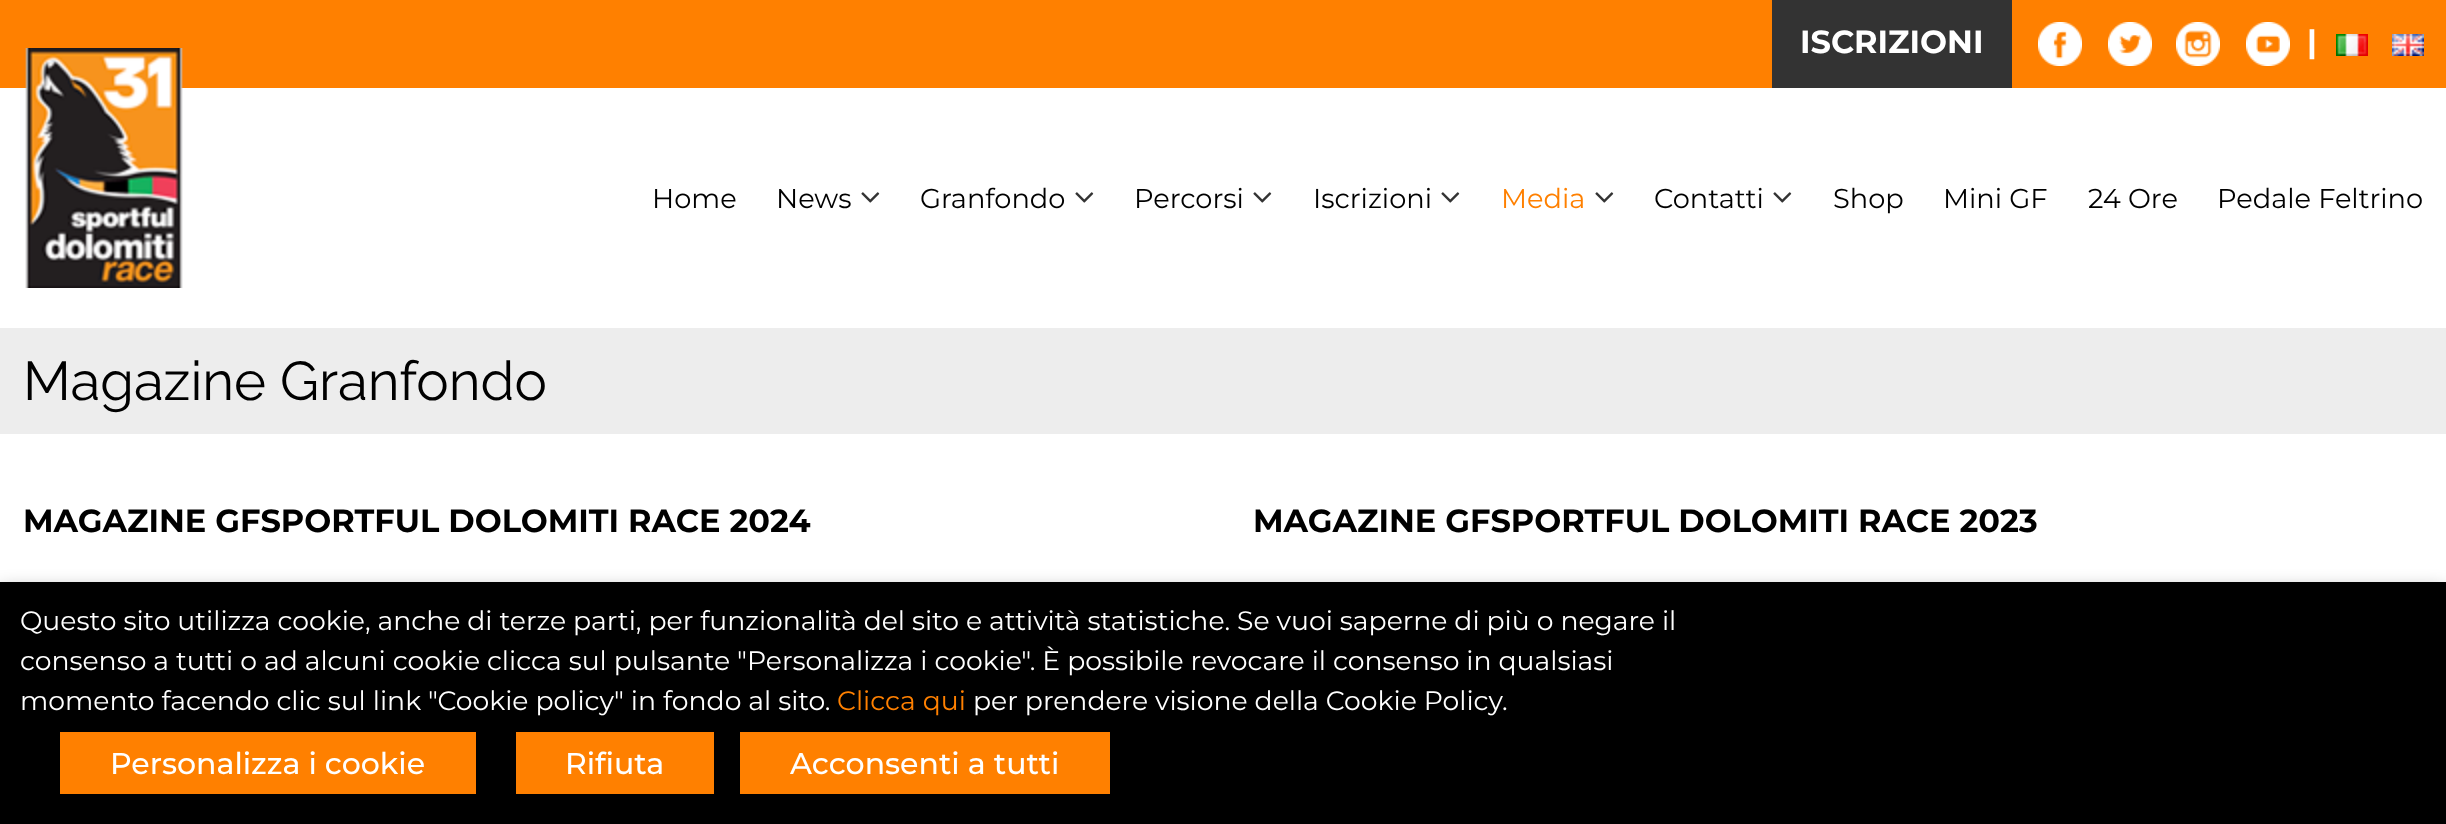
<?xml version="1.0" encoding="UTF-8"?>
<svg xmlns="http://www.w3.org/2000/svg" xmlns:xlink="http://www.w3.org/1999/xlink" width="2446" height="824">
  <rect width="100%" height="100%" fill="#ffffff" />
  <rect width="2446" height="88" fill="#ff8000" />
  <rect x="1772" width="240" height="88" fill="#333333" />
  <image x="2038" y="22" width="44" height="44" xlink:href="image1.png" />
  <image x="2108" y="22" width="44" height="44" xlink:href="image2.png" />
  <image x="2176" y="22" width="44" height="44" xlink:href="image3.png" />
  <image x="2246" y="22" width="44" height="44" xlink:href="image4.png" />
  <image x="2336" y="34" width="32" height="22" xlink:href="image5.png" />
  <image x="2392" y="34" width="32" height="22" xlink:href="image6.png" />
  <image x="25" y="48" width="158" height="240" xlink:href="image7.png" />
  <image x="861" y="192" width="19" height="11" xlink:href="image8.png" />
  <image x="1075" y="192" width="19" height="11" xlink:href="image8.png" />
  <image x="1253" y="192" width="19" height="11" xlink:href="image8.png" />
  <image x="1441" y="192" width="19" height="11" xlink:href="image8.png" />
  <image x="1595" y="192" width="19" height="11" xlink:href="image8.png" />
  <image x="1773" y="192" width="19" height="11" xlink:href="image8.png" />
  <rect y="328" width="2446" height="106" fill="#ededed" />
  <rect y="592" width="2446" height="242" fill="#000000" fill-opacity="0.5" filter="blur(10px)" />
  <rect y="582" width="2446" height="242" fill="#000000" />
  <rect x="60" y="732" width="416" height="62" fill="#ff8000" />
  <rect x="516" y="732" width="198" height="62" fill="#ff8000" />
  <rect x="740" y="732" width="370" height="62" fill="#ff8000" />
  <text x="1800" y="53" style="font-family: Montserrat; font-size: 32px; font-weight: bold; fill: #ffffff">ISCRIZIONI</text>
  <text x="2307" y="53" style="font-family: Montserrat; font-size: 32px; font-weight: bold; fill: #ffffff">|</text>
  <text x="652" y="208" style="font-family: Montserrat; font-size: 27.25px; fill: #000000">Home</text>
  <text x="776" y="208" style="font-family: Montserrat; font-size: 27.25px; fill: #000000">News</text>
  <text x="920" y="208" style="font-family: Montserrat; font-size: 27.25px; fill: #000000">Granfondo</text>
  <text x="1134" y="208" style="font-family: Montserrat; font-size: 27.25px; fill: #000000">Percorsi</text>
  <text x="1313" y="208" style="font-family: Montserrat; font-size: 27.25px; fill: #000000">Iscrizioni</text>
  <text x="1501" y="208" style="font-family: Montserrat; font-size: 27.25px; fill: #ff8000">Media</text>
  <text x="1654" y="208" style="font-family: Montserrat; font-size: 27.25px; fill: #000000">Contatti</text>
  <text x="1833" y="208" style="font-family: Montserrat; font-size: 27.25px; fill: #000000">Shop</text>
  <text x="1943" y="208" style="font-family: Montserrat; font-size: 27.25px; fill: #000000">Mini GF</text>
  <text x="2088" y="208" style="font-family: Montserrat; font-size: 27.25px; fill: #000000">24 Ore</text>
  <text x="2217" y="208" style="font-family: Montserrat; font-size: 27.25px; fill: #000000">Pedale Feltrino</text>
  <text x="23" y="400" style="font-family: Raleway; font-size: 54.5px; font-weight: 100; fill: #000000">Magazine Granfondo</text>
  <text x="23" y="532" style="font-family: Montserrat; font-size: 32px; font-weight: bold; fill: #000000">MAGAZINE GFSPORTFUL DOLOMITI RACE 2024</text>
  <text x="1253" y="532" style="font-family: Montserrat; font-size: 32px; font-weight: bold; fill: #000000">MAGAZINE GFSPORTFUL DOLOMITI RACE 2023</text>
  <text x="20" y="630" style="font-family: Montserrat; font-size: 26.67px; fill: #ffffff">Questo sito utilizza cookie, anche di terze parti, per funzionalità del sito e attività statistiche. Se vuoi saperne di più o negare il</text>
  <text x="20" y="670" style="font-family: Montserrat; font-size: 26.67px; fill: #ffffff">consenso a tutti o ad alcuni cookie clicca sul pulsante "Personalizza i cookie". È possibile revocare il consenso in qualsiasi</text>
  <text x="20" y="710" style="font-family: Montserrat; font-size: 26.67px; fill: #ffffff">momento facendo clic sul link "Cookie policy" in fondo al sito.</text>
  <text x="837" y="710" style="font-family: Montserrat; font-size: 26.67px; fill: #ff8000">Clicca qui</text>
  <text x="973" y="710" style="font-family: Montserrat; font-size: 26.67px; fill: #ffffff">per prendere visione della Cookie Policy.</text>
  <text x="110" y="774" style="font-family: Montserrat; font-size: 30px; font-weight: 500; fill: #ffffff">Personalizza i cookie</text>
  <text x="565" y="774" style="font-family: Montserrat; font-size: 30px; font-weight: 500; fill: #ffffff">Rifiuta</text>
  <text x="790" y="774" style="font-family: Montserrat; font-size: 30px; font-weight: 500; fill: #ffffff">Acconsenti a tutti</text>
</svg>
